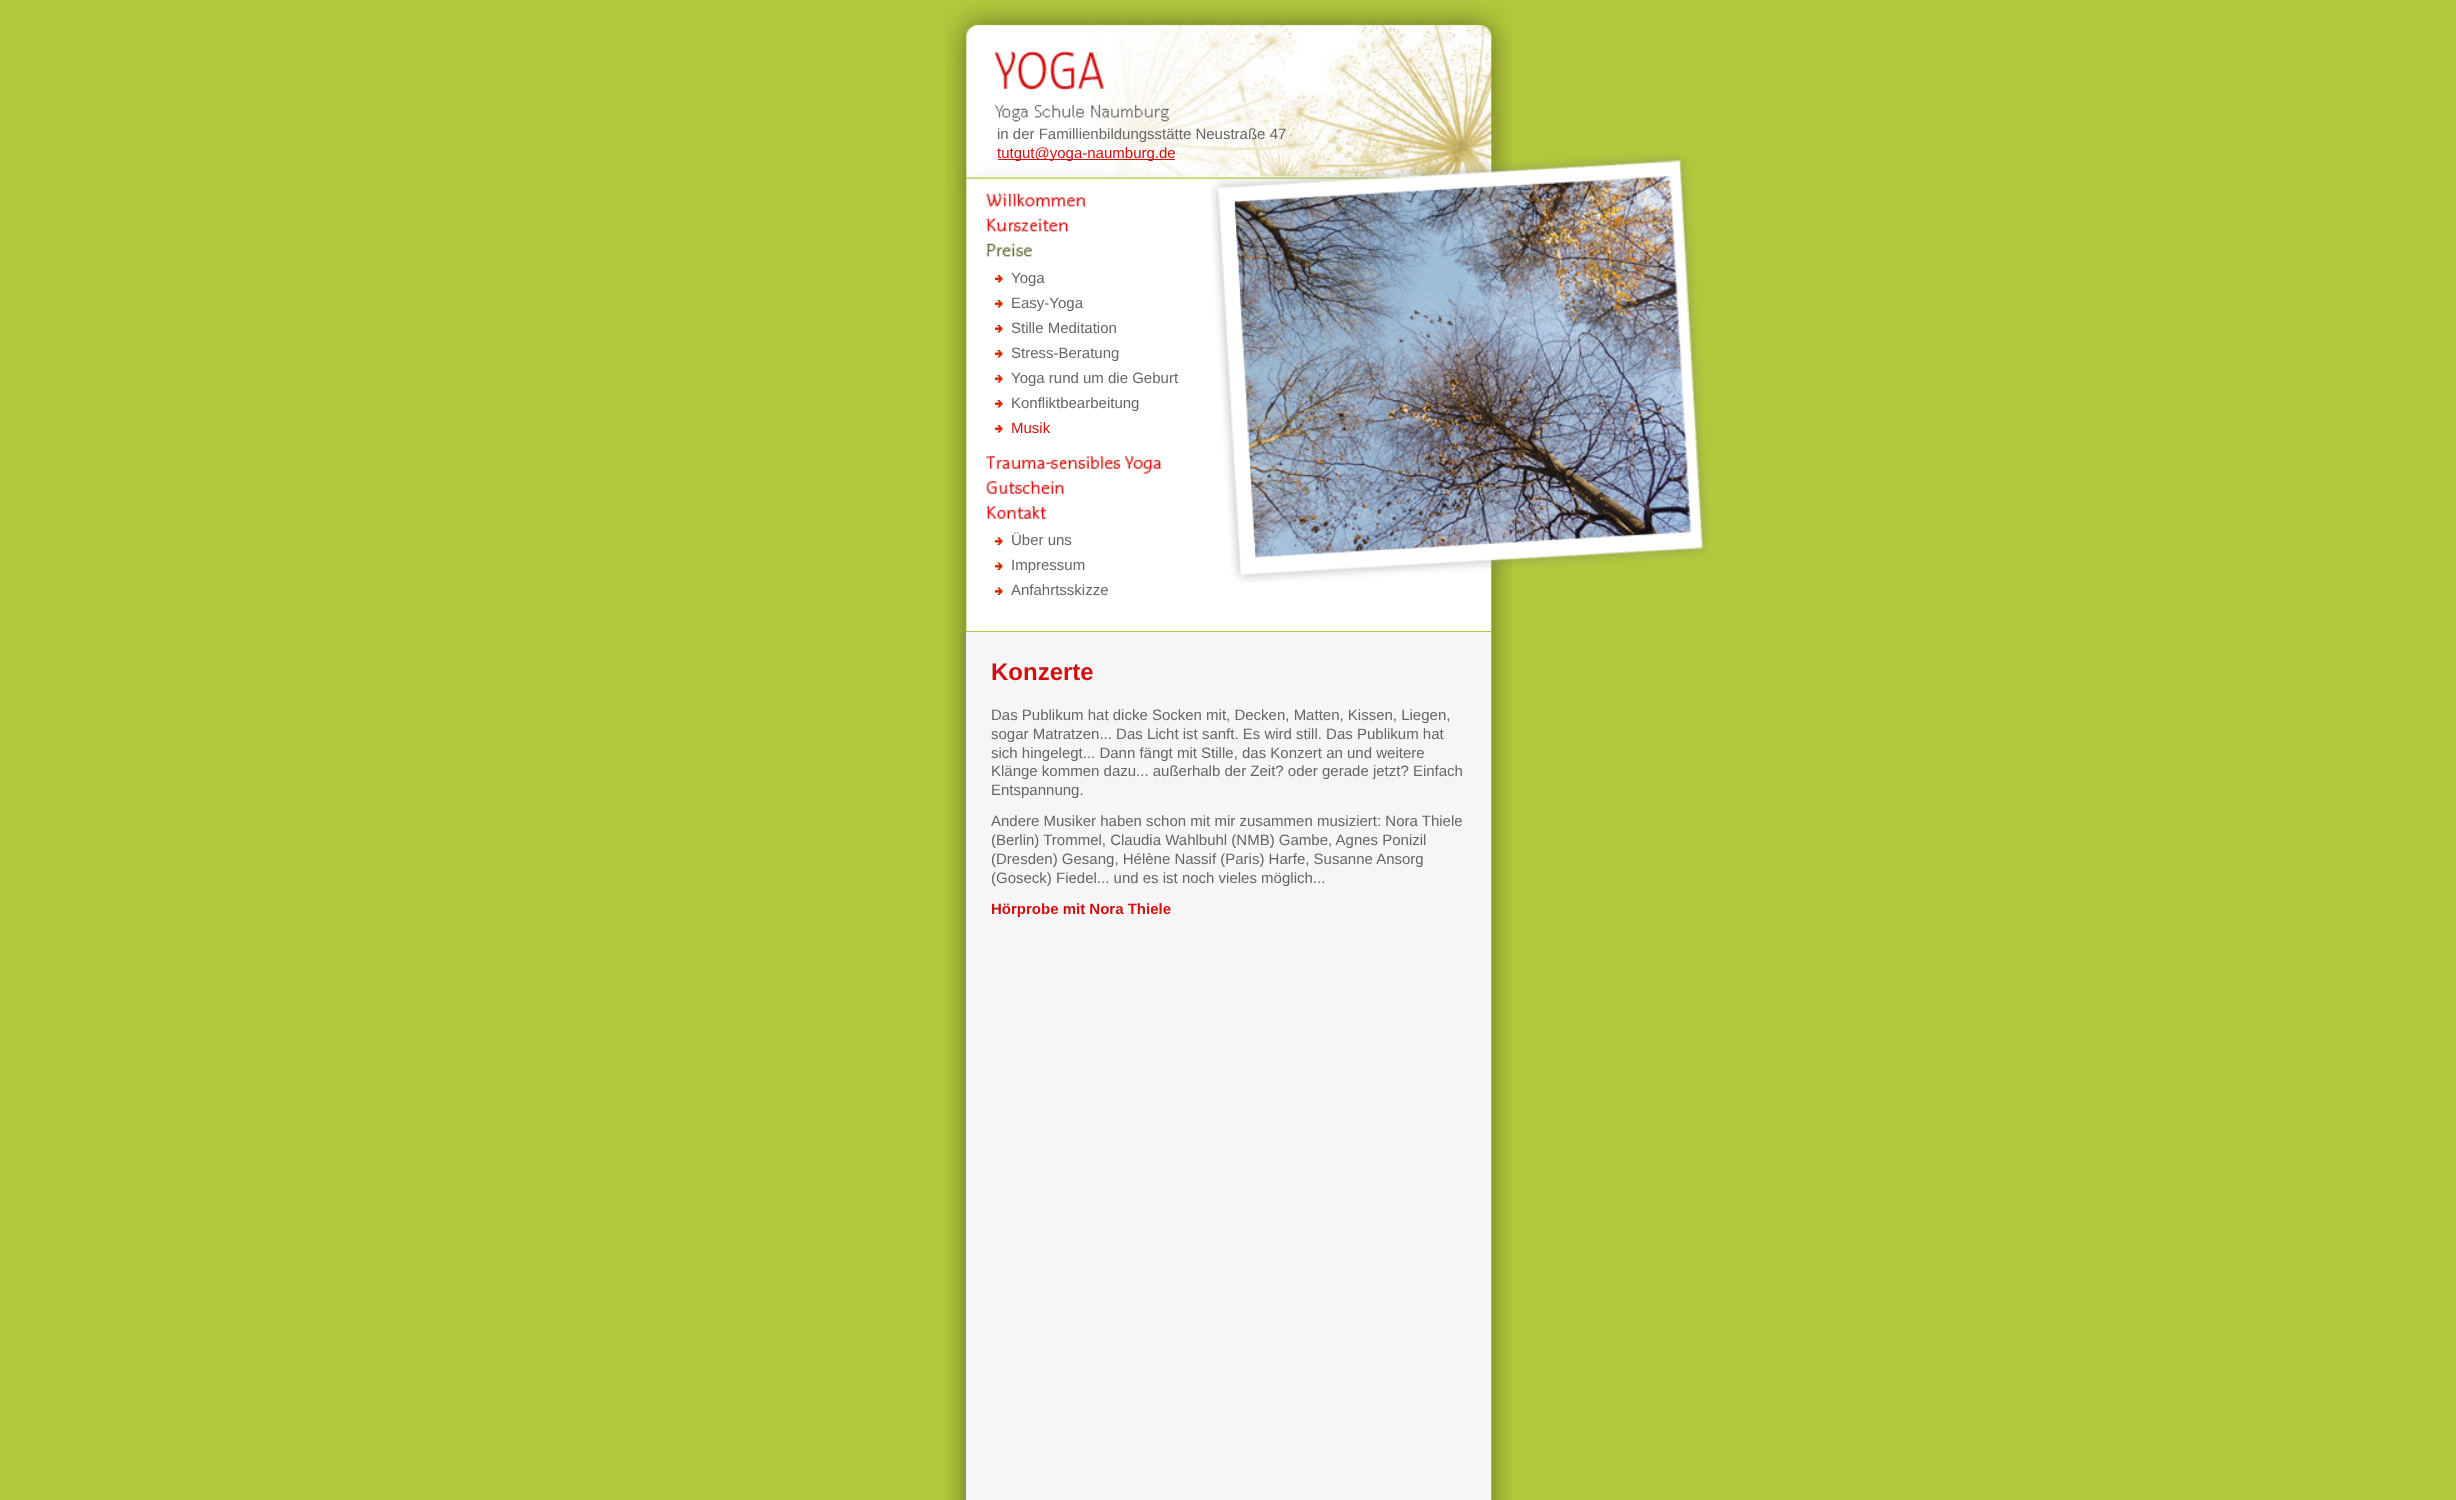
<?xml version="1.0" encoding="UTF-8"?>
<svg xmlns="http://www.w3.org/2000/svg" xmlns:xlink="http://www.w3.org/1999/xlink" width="2456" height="1500">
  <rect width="100%" height="100%" fill="#b2c73c" />
  <image x="945" y="187" width="567" height="1313" xlink:href="image1.png" />
  <image x="945" y="0" width="567" height="188" xlink:href="image2.png" />
  <image x="994" y="51" width="175" height="71" xlink:href="image3.png" />
  <rect x="998" y="159" width="177" height="1" fill="#d10f0f" />
  <image x="986" y="193" width="101" height="14" xlink:href="image4.png" />
  <image x="986" y="218" width="83" height="14" xlink:href="image5.png" />
  <image x="986" y="243" width="46" height="14" xlink:href="image6.png" />
  <image x="995" y="275" width="8" height="8" xlink:href="image7.png" />
  <image x="995" y="300" width="8" height="8" xlink:href="image7.png" />
  <image x="995" y="325" width="8" height="8" xlink:href="image7.png" />
  <image x="995" y="350" width="8" height="8" xlink:href="image7.png" />
  <image x="995" y="375" width="8" height="8" xlink:href="image7.png" />
  <image x="995" y="400" width="8" height="8" xlink:href="image7.png" />
  <image x="995" y="425" width="8" height="8" xlink:href="image7.png" />
  <image x="986" y="455" width="176" height="19" xlink:href="image8.png" />
  <image x="986" y="481" width="79" height="13" xlink:href="image9.png" />
  <image x="986" y="506" width="61" height="13" xlink:href="image10.png" />
  <image x="995" y="537" width="8" height="8" xlink:href="image11.png" />
  <image x="995" y="562" width="8" height="8" xlink:href="image11.png" />
  <image x="995" y="587" width="8" height="8" xlink:href="image12.png" />
  <image x="1210" y="154" width="499" height="429" xlink:href="image13.png" />
  <image x="1233" y="176" width="459" height="382" xlink:href="image14.png" />
  <rect x="966" y="632" width="525" height="868" fill="#f6f6f6" />
  <rect x="966" y="631" width="525" height="1" fill="#b2c73c" />
  <text x="997" y="139" style="font-family: Liberation Sans; font-size: 15px; fill: #666666">in der Famillienbildungsstätte Neustraße 47</text>
  <text x="997" y="158" style="font-family: Liberation Sans; font-size: 15px; fill: #d10f0f">tutgut@yoga-naumburg.de</text>
  <text x="1011" y="283" style="font-family: Liberation Sans; font-size: 15px; fill: #666666">Yoga</text>
  <text x="1011" y="308" style="font-family: Liberation Sans; font-size: 15px; fill: #666666">Easy-Yoga</text>
  <text x="1011" y="333" style="font-family: Liberation Sans; font-size: 15px; fill: #666666">Stille Meditation</text>
  <text x="1011" y="358" style="font-family: Liberation Sans; font-size: 15px; fill: #666666">Stress-Beratung</text>
  <text x="1011" y="383" style="font-family: Liberation Sans; font-size: 15px; fill: #666666">Yoga rund um die Geburt</text>
  <text x="1011" y="408" style="font-family: Liberation Sans; font-size: 15px; fill: #666666">Konfliktbearbeitung</text>
  <text x="1011" y="433" style="font-family: Liberation Sans; font-size: 15px; fill: #d10f0f">Musik</text>
  <text x="1011" y="545" style="font-family: Liberation Sans; font-size: 15px; fill: #666666">Über uns</text>
  <text x="1011" y="570" style="font-family: Liberation Sans; font-size: 15px; fill: #666666">Impressum</text>
  <text x="1011" y="595" style="font-family: Liberation Sans; font-size: 15px; fill: #666666">Anfahrtsskizze</text>
  <text x="991" y="680" style="font-family: Liberation Sans; font-size: 24px; font-weight: bold; fill: #d10f0f">Konzerte</text>
  <text x="991" y="720" style="font-family: Liberation Sans; font-size: 15px; fill: #666666">Das Publikum hat dicke Socken mit, Decken, Matten, Kissen, Liegen,</text>
  <text x="991" y="739" style="font-family: Liberation Sans; font-size: 15px; fill: #666666">sogar Matratzen... Das Licht ist sanft. Es wird still. Das Publikum hat</text>
  <text x="991" y="758" style="font-family: Liberation Sans; font-size: 15px; fill: #666666">sich hingelegt... Dann fängt mit Stille, das Konzert an und weitere</text>
  <text x="991" y="776" style="font-family: Liberation Sans; font-size: 15px; fill: #666666">Klänge kommen dazu... außerhalb der Zeit? oder gerade jetzt? Einfach</text>
  <text x="991" y="795" style="font-family: Liberation Sans; font-size: 15px; fill: #666666">Entspannung.</text>
  <text x="991" y="826" style="font-family: Liberation Sans; font-size: 15px; fill: #666666">Andere Musiker haben schon mit mir zusammen musiziert: Nora Thiele</text>
  <text x="991" y="845" style="font-family: Liberation Sans; font-size: 15px; fill: #666666">(Berlin) Trommel, Claudia Wahlbuhl (NMB) Gambe, Agnes Ponizil</text>
  <text x="991" y="864" style="font-family: Liberation Sans; font-size: 15px; fill: #666666">(Dresden) Gesang, Hélène Nassif (Paris) Harfe, Susanne Ansorg</text>
  <text x="991" y="883" style="font-family: Liberation Sans; font-size: 15px; fill: #666666">(Goseck) Fiedel... und es ist noch vieles möglich...</text>
  <text x="991" y="914" style="font-family: Liberation Sans; font-size: 15px; font-weight: bold; fill: #d10f0f">Hörprobe mit Nora Thiele</text>
</svg>
